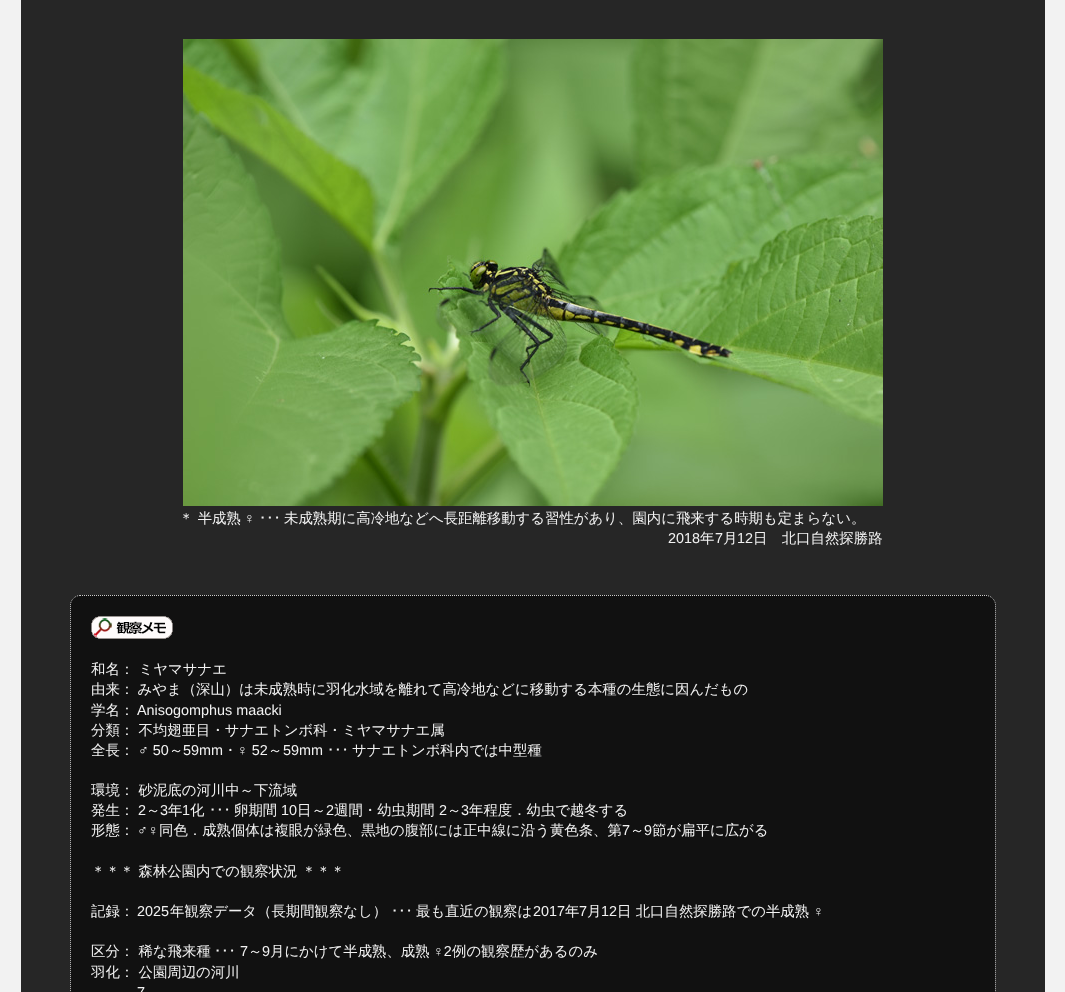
<?xml version="1.0" encoding="UTF-8"?>
<svg xmlns="http://www.w3.org/2000/svg" xmlns:xlink="http://www.w3.org/1999/xlink" width="1065" height="992">
  <rect width="100%" height="100%" fill="#f2f2f2" />
  <rect x="21" width="1024" height="992" fill="#262626" />
  <image x="183" y="39" width="700" height="467" xlink:href="image1.png" />
  <rect x="70" y="595" width="926" height="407" rx="10" fill="#111111" />
  <path d="M 80 595.5 h 906 c 5 0 9.5 4.5 9.5 9.5 v 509 c 0 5 -4.5 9.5 -9.5 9.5 h -906 c -5 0 -9.5 -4.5 -9.5 -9.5 v -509 c 0 -5 4.5 -9.5 9.5 -9.5 z" fill="none" stroke="#cccccc" stroke-dasharray="1 1" />
  <image x="91" y="616" width="82" height="23" xlink:href="image2.png" />
  <text x="179" y="523" style="font-family: WenQuanYi Zen Hei; font-size: 14.4px; font-weight: 500; fill: #f2f2f2">＊ 半成熟</text>
  <text x="244" y="523" style="font-family: Liberation Sans; font-size: 14.4px; fill: #f2f2f2">♀</text>
  <text x="259" y="523" style="font-family: IPAPGothic; font-size: 14.4px; fill: #f2f2f2">･･･</text>
  <text x="284" y="523" style="font-family: WenQuanYi Zen Hei; font-size: 14.4px; font-weight: 500; fill: #f2f2f2">未成熟期に高冷地などへ長距離移動する習性があり、園内に飛来する時期も定まらない。</text>
  <text x="668" y="543" style="font-family: Liberation Sans; font-size: 14.4px; fill: #f2f2f2">2018</text>
  <text x="700" y="543" style="font-family: WenQuanYi Zen Hei; font-size: 14.4px; font-weight: 500; fill: #f2f2f2">年</text>
  <text x="715" y="543" style="font-family: Liberation Sans; font-size: 14.4px; fill: #f2f2f2">7</text>
  <text x="723" y="543" style="font-family: WenQuanYi Zen Hei; font-size: 14.4px; font-weight: 500; fill: #f2f2f2">月</text>
  <text x="737" y="543" style="font-family: Liberation Sans; font-size: 14.4px; fill: #f2f2f2">12</text>
  <text x="753" y="543" style="font-family: WenQuanYi Zen Hei; font-size: 14.4px; font-weight: 500; fill: #f2f2f2">日　北口自然探勝路</text>
  <text x="91" y="674" style="font-family: WenQuanYi Zen Hei; font-size: 14.4px; font-weight: 500; fill: #f2f2f2">和名： ミヤマサナエ</text>
  <text x="91" y="694" word-spacing="-1" style="font-family: WenQuanYi Zen Hei; font-size: 14.4px; font-weight: 500; fill: #f2f2f2">由来： みやま（深山）は未成熟時に羽化水域を離れて高冷地などに移動する本種の生態に因んだもの</text>
  <text x="91" y="715" style="font-family: WenQuanYi Zen Hei; font-size: 14.4px; font-weight: 500; fill: #f2f2f2">学名：</text>
  <text x="137" y="715" style="font-family: Liberation Sans; font-size: 14.4px; fill: #f2f2f2">Anisogomphus maacki</text>
  <text x="91" y="735" style="font-family: WenQuanYi Zen Hei; font-size: 14.4px; font-weight: 500; fill: #f2f2f2">分類： 不均翅亜目・サナエトンボ科・ミヤマサナエ属</text>
  <text x="91" y="755" style="font-family: WenQuanYi Zen Hei; font-size: 14.4px; font-weight: 500; fill: #f2f2f2">全長：</text>
  <text x="138" y="755" style="font-family: Liberation Sans; font-size: 14.4px; fill: #f2f2f2">♂ 50</text>
  <text x="169" y="755" style="font-family: WenQuanYi Zen Hei; font-size: 14.4px; font-weight: 500; fill: #f2f2f2">～</text>
  <text x="183" y="755" style="font-family: Liberation Sans; font-size: 14.4px; fill: #f2f2f2">59mm</text>
  <text x="223" y="755" style="font-family: WenQuanYi Zen Hei; font-size: 14.4px; font-weight: 500; fill: #f2f2f2">・</text>
  <text x="237" y="755" style="font-family: Liberation Sans; font-size: 14.4px; fill: #f2f2f2">♀ 52</text>
  <text x="268" y="755" style="font-family: WenQuanYi Zen Hei; font-size: 14.4px; font-weight: 500; fill: #f2f2f2">～</text>
  <text x="283" y="755" style="font-family: Liberation Sans; font-size: 14.4px; fill: #f2f2f2">59mm</text>
  <text x="327" y="755" style="font-family: IPAPGothic; font-size: 14.4px; fill: #f2f2f2">･･･</text>
  <text x="352" y="755" style="font-family: WenQuanYi Zen Hei; font-size: 14.4px; font-weight: 500; fill: #f2f2f2">サナエトンボ科内では中型種</text>
  <text x="91" y="795" style="font-family: WenQuanYi Zen Hei; font-size: 14.4px; font-weight: 500; fill: #f2f2f2">環境： 砂泥底の河川中～下流域</text>
  <text x="91" y="815" style="font-family: WenQuanYi Zen Hei; font-size: 14.4px; font-weight: 500; fill: #f2f2f2">発生：</text>
  <text x="138" y="815" style="font-family: Liberation Sans; font-size: 14.4px; fill: #f2f2f2">2</text>
  <text x="146" y="815" style="font-family: WenQuanYi Zen Hei; font-size: 14.4px; font-weight: 500; fill: #f2f2f2">～</text>
  <text x="160" y="815" style="font-family: Liberation Sans; font-size: 14.4px; fill: #f2f2f2">3</text>
  <text x="168" y="815" style="font-family: WenQuanYi Zen Hei; font-size: 14.4px; font-weight: 500; fill: #f2f2f2">年</text>
  <text x="182" y="815" style="font-family: Liberation Sans; font-size: 14.4px; fill: #f2f2f2">1</text>
  <text x="190" y="815" style="font-family: WenQuanYi Zen Hei; font-size: 14.4px; font-weight: 500; fill: #f2f2f2">化</text>
  <text x="209" y="815" style="font-family: IPAPGothic; font-size: 14.4px; fill: #f2f2f2">･･･</text>
  <text x="234" y="815" style="font-family: WenQuanYi Zen Hei; font-size: 14.4px; font-weight: 500; fill: #f2f2f2">卵期間</text>
  <text x="281" y="815" style="font-family: Liberation Sans; font-size: 14.4px; fill: #f2f2f2">10</text>
  <text x="297" y="815" style="font-family: WenQuanYi Zen Hei; font-size: 14.4px; font-weight: 500; fill: #f2f2f2">日～</text>
  <text x="326" y="815" style="font-family: Liberation Sans; font-size: 14.4px; fill: #f2f2f2">2</text>
  <text x="334" y="815" style="font-family: WenQuanYi Zen Hei; font-size: 14.4px; font-weight: 500; fill: #f2f2f2">週間・幼虫期間</text>
  <text x="439" y="815" style="font-family: Liberation Sans; font-size: 14.4px; fill: #f2f2f2">2</text>
  <text x="447" y="815" style="font-family: WenQuanYi Zen Hei; font-size: 14.4px; font-weight: 500; fill: #f2f2f2">～</text>
  <text x="461" y="815" style="font-family: Liberation Sans; font-size: 14.4px; fill: #f2f2f2">3</text>
  <text x="469" y="815" style="font-family: WenQuanYi Zen Hei; font-size: 14.4px; font-weight: 500; fill: #f2f2f2">年程度．幼虫で越冬する</text>
  <text x="91" y="835" style="font-family: WenQuanYi Zen Hei; font-size: 14.4px; font-weight: 500; fill: #f2f2f2">形態：</text>
  <text x="137" y="835" style="font-family: Liberation Sans; font-size: 14.4px; fill: #f2f2f2">♂♀</text>
  <text x="159" y="835" style="font-family: WenQuanYi Zen Hei; font-size: 14.4px; font-weight: 500; fill: #f2f2f2">同色．成熟個体は複眼が緑色、黒地の腹部には正中線に沿う黄色条、第</text>
  <text x="622" y="835" style="font-family: Liberation Sans; font-size: 14.4px; fill: #f2f2f2">7</text>
  <text x="630" y="835" style="font-family: WenQuanYi Zen Hei; font-size: 14.4px; font-weight: 500; fill: #f2f2f2">～</text>
  <text x="644" y="835" style="font-family: Liberation Sans; font-size: 14.4px; fill: #f2f2f2">9</text>
  <text x="652" y="835" style="font-family: WenQuanYi Zen Hei; font-size: 14.4px; font-weight: 500; fill: #f2f2f2">節が扁平に広がる</text>
  <text x="91" y="876" style="font-family: WenQuanYi Zen Hei; font-size: 14.4px; font-weight: 500; fill: #f2f2f2">＊＊＊ 森林公園内での観察状況 ＊＊＊</text>
  <text x="91" y="916" style="font-family: WenQuanYi Zen Hei; font-size: 14.4px; font-weight: 500; fill: #f2f2f2">記録：</text>
  <text x="137" y="916" style="font-family: Liberation Sans; font-size: 14.4px; fill: #f2f2f2">2025</text>
  <text x="170" y="916" style="font-family: WenQuanYi Zen Hei; font-size: 14.4px; font-weight: 500; fill: #f2f2f2">年観察データ（長期間観察なし）</text>
  <text x="391" y="916" style="font-family: IPAPGothic; font-size: 14.4px; fill: #f2f2f2">･･･</text>
  <text x="416" y="916" style="font-family: WenQuanYi Zen Hei; font-size: 14.4px; font-weight: 500; fill: #f2f2f2">最も直近の観察は</text>
  <text x="533" y="916" style="font-family: Liberation Sans; font-size: 14.4px; fill: #f2f2f2">2017</text>
  <text x="565" y="916" style="font-family: WenQuanYi Zen Hei; font-size: 14.4px; font-weight: 500; fill: #f2f2f2">年</text>
  <text x="579" y="916" style="font-family: Liberation Sans; font-size: 14.4px; fill: #f2f2f2">7</text>
  <text x="587" y="916" style="font-family: WenQuanYi Zen Hei; font-size: 14.4px; font-weight: 500; fill: #f2f2f2">月</text>
  <text x="601" y="916" style="font-family: Liberation Sans; font-size: 14.4px; fill: #f2f2f2">12</text>
  <text x="617" y="916" style="font-family: WenQuanYi Zen Hei; font-size: 14.4px; font-weight: 500; fill: #f2f2f2">日 北口自然探勝路での半成熟</text>
  <text x="813" y="916" style="font-family: Liberation Sans; font-size: 14.4px; fill: #f2f2f2">♀</text>
  <text x="91" y="956" style="font-family: WenQuanYi Zen Hei; font-size: 14.4px; font-weight: 500; fill: #f2f2f2">区分： 稀な飛来種</text>
  <text x="214" y="956" style="font-family: IPAPGothic; font-size: 14.4px; fill: #f2f2f2">･･･</text>
  <text x="240" y="956" style="font-family: Liberation Sans; font-size: 14.4px; fill: #f2f2f2">7</text>
  <text x="248" y="956" style="font-family: WenQuanYi Zen Hei; font-size: 14.4px; font-weight: 500; fill: #f2f2f2">～</text>
  <text x="262" y="956" style="font-family: Liberation Sans; font-size: 14.4px; fill: #f2f2f2">9</text>
  <text x="270" y="956" style="font-family: WenQuanYi Zen Hei; font-size: 14.4px; font-weight: 500; fill: #f2f2f2">月にかけて半成熟、成熟</text>
  <text x="433" y="956" style="font-family: Liberation Sans; font-size: 14.4px; fill: #f2f2f2">♀2</text>
  <text x="452" y="956" style="font-family: WenQuanYi Zen Hei; font-size: 14.4px; font-weight: 500; fill: #f2f2f2">例の観察歴があるのみ</text>
  <text x="91" y="977" style="font-family: WenQuanYi Zen Hei; font-size: 14.4px; font-weight: 500; fill: #f2f2f2">羽化： 公園周辺の河川</text>
  <text x="137" y="997" style="font-family: Liberation Sans; font-size: 14.4px; fill: #f2f2f2">7</text>
</svg>
